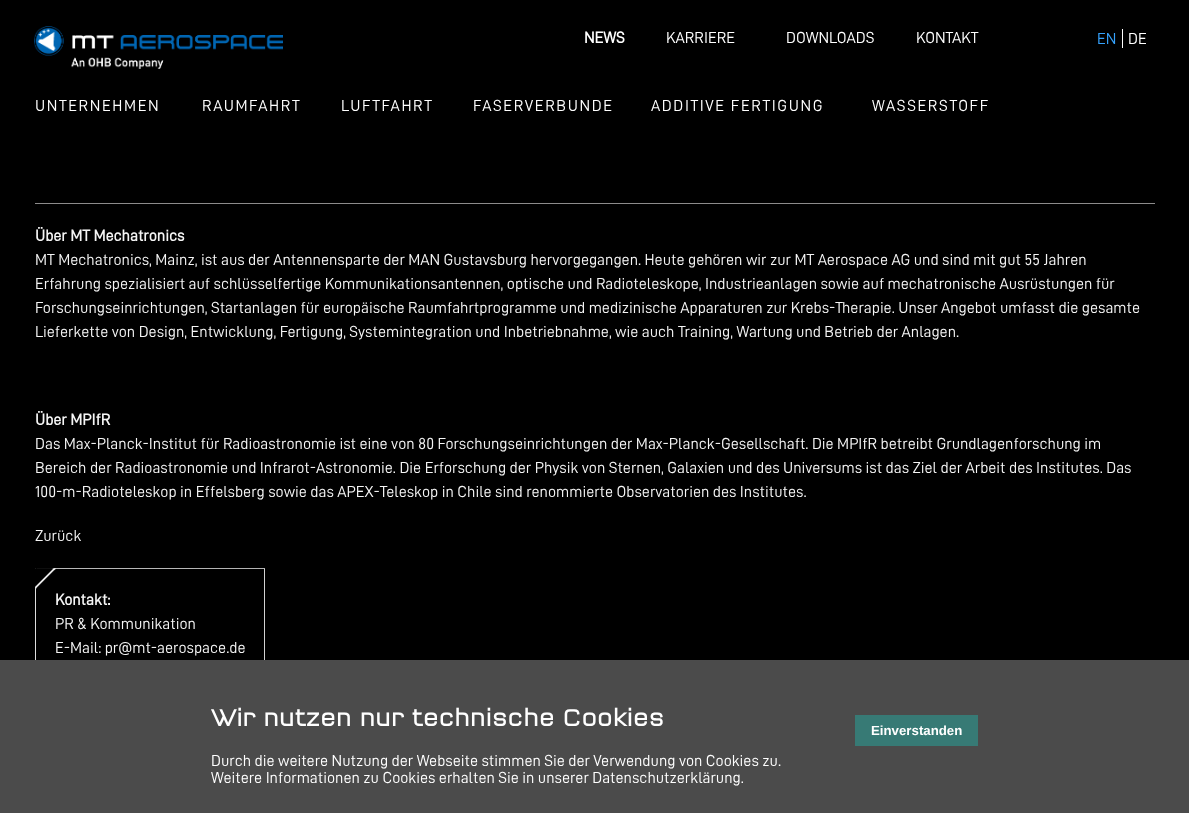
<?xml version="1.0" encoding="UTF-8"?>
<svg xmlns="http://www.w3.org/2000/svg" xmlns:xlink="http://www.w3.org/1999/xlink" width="1189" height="813">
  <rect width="100%" height="100%" fill="#000000" />
  <image x="34" y="26" width="249" height="43" xlink:href="image1.png" />
  <rect x="1122" y="29" width="1" height="19" fill="#ffffff" />
  <rect x="35" y="203" width="1120" height="1" fill="#8c8b8b" />
  <image x="35" y="568" width="230" height="92" xlink:href="image2.png" />
  <rect y="660" width="1189" height="153" fill="#4b4b4b" />
  <rect x="855" y="715" width="123" height="31" fill="#377a75" />
  <text x="584" y="43" style="font-family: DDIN; font-size: 16px; font-weight: bold; fill: #ffffff">NEWS</text>
  <text x="666" y="43" style="font-family: DDIN; font-size: 16px; fill: #ffffff">KARRIERE</text>
  <text x="786" y="43" style="font-family: DDIN; font-size: 16px; fill: #ffffff">DOWNLOADS</text>
  <text x="916" y="43" style="font-family: DDIN; font-size: 16px; fill: #ffffff">KONTAKT</text>
  <text x="1097" y="44" style="font-family: DDIN; font-size: 16px; fill: #35a2fc">EN</text>
  <text x="1128" y="44" style="font-family: DDIN; font-size: 16px; fill: #ffffff">DE</text>
  <text x="35" y="111" style="font-family: DDIN; font-size: 16px; letter-spacing: 1.6px; fill: #ffffff">UNTERNEHMEN</text>
  <text x="202" y="111" style="font-family: DDIN; font-size: 16px; letter-spacing: 1.6px; fill: #ffffff">RAUMFAHRT</text>
  <text x="341" y="111" style="font-family: DDIN; font-size: 16px; letter-spacing: 1.6px; fill: #ffffff">LUFTFAHRT</text>
  <text x="473" y="111" style="font-family: DDIN; font-size: 16px; letter-spacing: 1.6px; fill: #ffffff">FASERVERBUNDE</text>
  <text x="651" y="111" style="font-family: DDIN; font-size: 16px; letter-spacing: 1.6px; fill: #ffffff">ADDITIVE FERTIGUNG</text>
  <text x="872" y="111" style="font-family: DDIN; font-size: 16px; letter-spacing: 1.6px; fill: #ffffff">WASSERSTOFF</text>
  <text x="35" y="241" style="font-family: DDIN; font-size: 16px; font-weight: bold; fill: #f5f5f5">Über MT Mechatronics</text>
  <text x="35" y="265" style="font-family: DDIN; font-size: 16px; fill: #f5f5f5">MT Mechatronics, Mainz, ist aus der Antennensparte der MAN Gustavsburg hervorgegangen. Heute gehören wir zur MT Aerospace AG und sind mit gut 55 Jahren</text>
  <text x="35" y="289" style="font-family: DDIN; font-size: 16px; fill: #f5f5f5">Erfahrung spezialisiert auf schlüsselfertige Kommunikationsantennen, optische und Radioteleskope, Industrieanlagen sowie auf mechatronische Ausrüstungen für</text>
  <text x="35" y="313" style="font-family: DDIN; font-size: 16px; fill: #f5f5f5">Forschungseinrichtungen, Startanlagen für europäische Raumfahrtprogramme und medizinische Apparaturen zur Krebs-Therapie. Unser Angebot umfasst die gesamte</text>
  <text x="35" y="337" style="font-family: DDIN; font-size: 16px; fill: #f5f5f5">Lieferkette von Design, Entwicklung, Fertigung, Systemintegration und Inbetriebnahme, wie auch Training, Wartung und Betrieb der Anlagen.</text>
  <text x="35" y="425" style="font-family: DDIN; font-size: 16px; font-weight: bold; fill: #f5f5f5">Über MPIfR</text>
  <text x="35" y="449" style="font-family: DDIN; font-size: 16px; fill: #f5f5f5">Das Max-Planck-Institut für Radioastronomie ist eine von 80 Forschungseinrichtungen der Max-Planck-Gesellschaft. Die MPIfR betreibt Grundlagenforschung im</text>
  <text x="35" y="473" style="font-family: DDIN; font-size: 16px; fill: #f5f5f5">Bereich der Radioastronomie und Infrarot-Astronomie. Die Erforschung der Physik von Sternen, Galaxien und des Universums ist das Ziel der Arbeit des Institutes. Das</text>
  <text x="35" y="497" style="font-family: DDIN; font-size: 16px; fill: #f5f5f5">100-m-Radioteleskop in Effelsberg sowie das APEX-Teleskop in Chile sind renommierte Observatorien des Institutes.</text>
  <text x="35" y="541" style="font-family: DDIN; font-size: 16px; fill: #f5f5f5">Zurück</text>
  <text x="55" y="605" style="font-family: DDIN; font-size: 16px; font-weight: bold; fill: #f5f5f5">Kontakt:</text>
  <text x="55" y="629" style="font-family: DDIN; font-size: 16px; fill: #f5f5f5">PR &amp; Kommunikation</text>
  <text x="55" y="653" style="font-family: DDIN; font-size: 16px; fill: #f5f5f5">E-Mail: pr@mt-aerospace.de</text>
  <text x="211" y="726" style="font-family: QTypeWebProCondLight; font-size: 24px; font-weight: bold; fill: #ffffff">Wir nutzen nur technische Cookies</text>
  <text x="211" y="766" style="font-family: DDIN; font-size: 16px; fill: #ffffff">Durch die weitere Nutzung der Webseite stimmen Sie der Verwendung von Cookies zu.</text>
  <text x="211" y="783" style="font-family: DDIN; font-size: 16px; fill: #ffffff">Weitere Informationen zu Cookies erhalten Sie in unserer Datenschutzerklärung.</text>
  <text x="871" y="735" style="font-family: Liberation Sans; font-size: 13.25px; font-weight: bold; fill: #ffffff">Einverstanden</text>
</svg>
